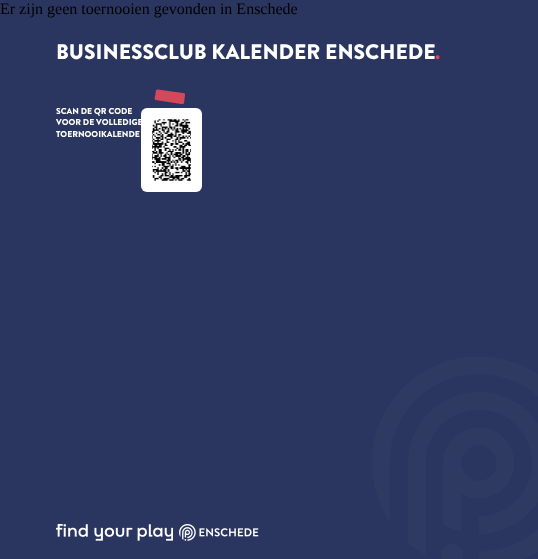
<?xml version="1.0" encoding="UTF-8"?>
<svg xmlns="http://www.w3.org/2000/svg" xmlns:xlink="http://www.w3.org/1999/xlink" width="538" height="559">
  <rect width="100%" height="100%" fill="#2a365f" />
  <path d="M 157.5 89.5 l 22 3 c 6.5 1 6 0 5 6.5 c -0.5 6 0 5.5 -6.5 4.5 l -22.5 -3.5 c -1.5 -1 -0.5 -4 0 -5.5 c 0 -1 0 -5.5 2 -5 z" fill="#d3485b" />
  <rect x="141" y="108" width="61" height="84" rx="6" fill="#ffffff" />
  <image x="152" y="119" width="39" height="62" xlink:href="image1.png" />
  <image x="56" y="524" width="117" height="17" xlink:href="image2.png" />
  <image x="179" y="524" width="80" height="17" xlink:href="image3.png" />
  <image x="373" y="357" width="165" height="202" xlink:href="image4.png" />
  <text x="0" y="14" style="font-family: Liberation Serif; font-size: 16px; fill: #000000">Er zijn geen toernooien gevonden in Enschede</text>
  <text x="56" y="59" style="font-family: Brandon Grotesque; font-size: 21px; font-weight: 900; fill: #ffffff">BUSINESSCLUB KALENDER ENSCHEDE</text>
  <text x="435" y="59" style="font-family: Brandon Grotesque; font-size: 21px; font-weight: 900; fill: #d3485b">.</text>
  <text x="56" y="114" style="font-family: Brandon Grotesque; font-size: 8.6px; font-weight: 900; fill: #ffffff">SCAN DE QR CODE</text>
  <text x="56" y="125" style="font-family: Brandon Grotesque; font-size: 8.6px; font-weight: 900; fill: #ffffff">VOOR DE VOLLEDIGE</text>
  <text x="56" y="137" style="font-family: Brandon Grotesque; font-size: 8.6px; font-weight: 900; fill: #ffffff">TOERNOOIKALENDE</text>
</svg>
